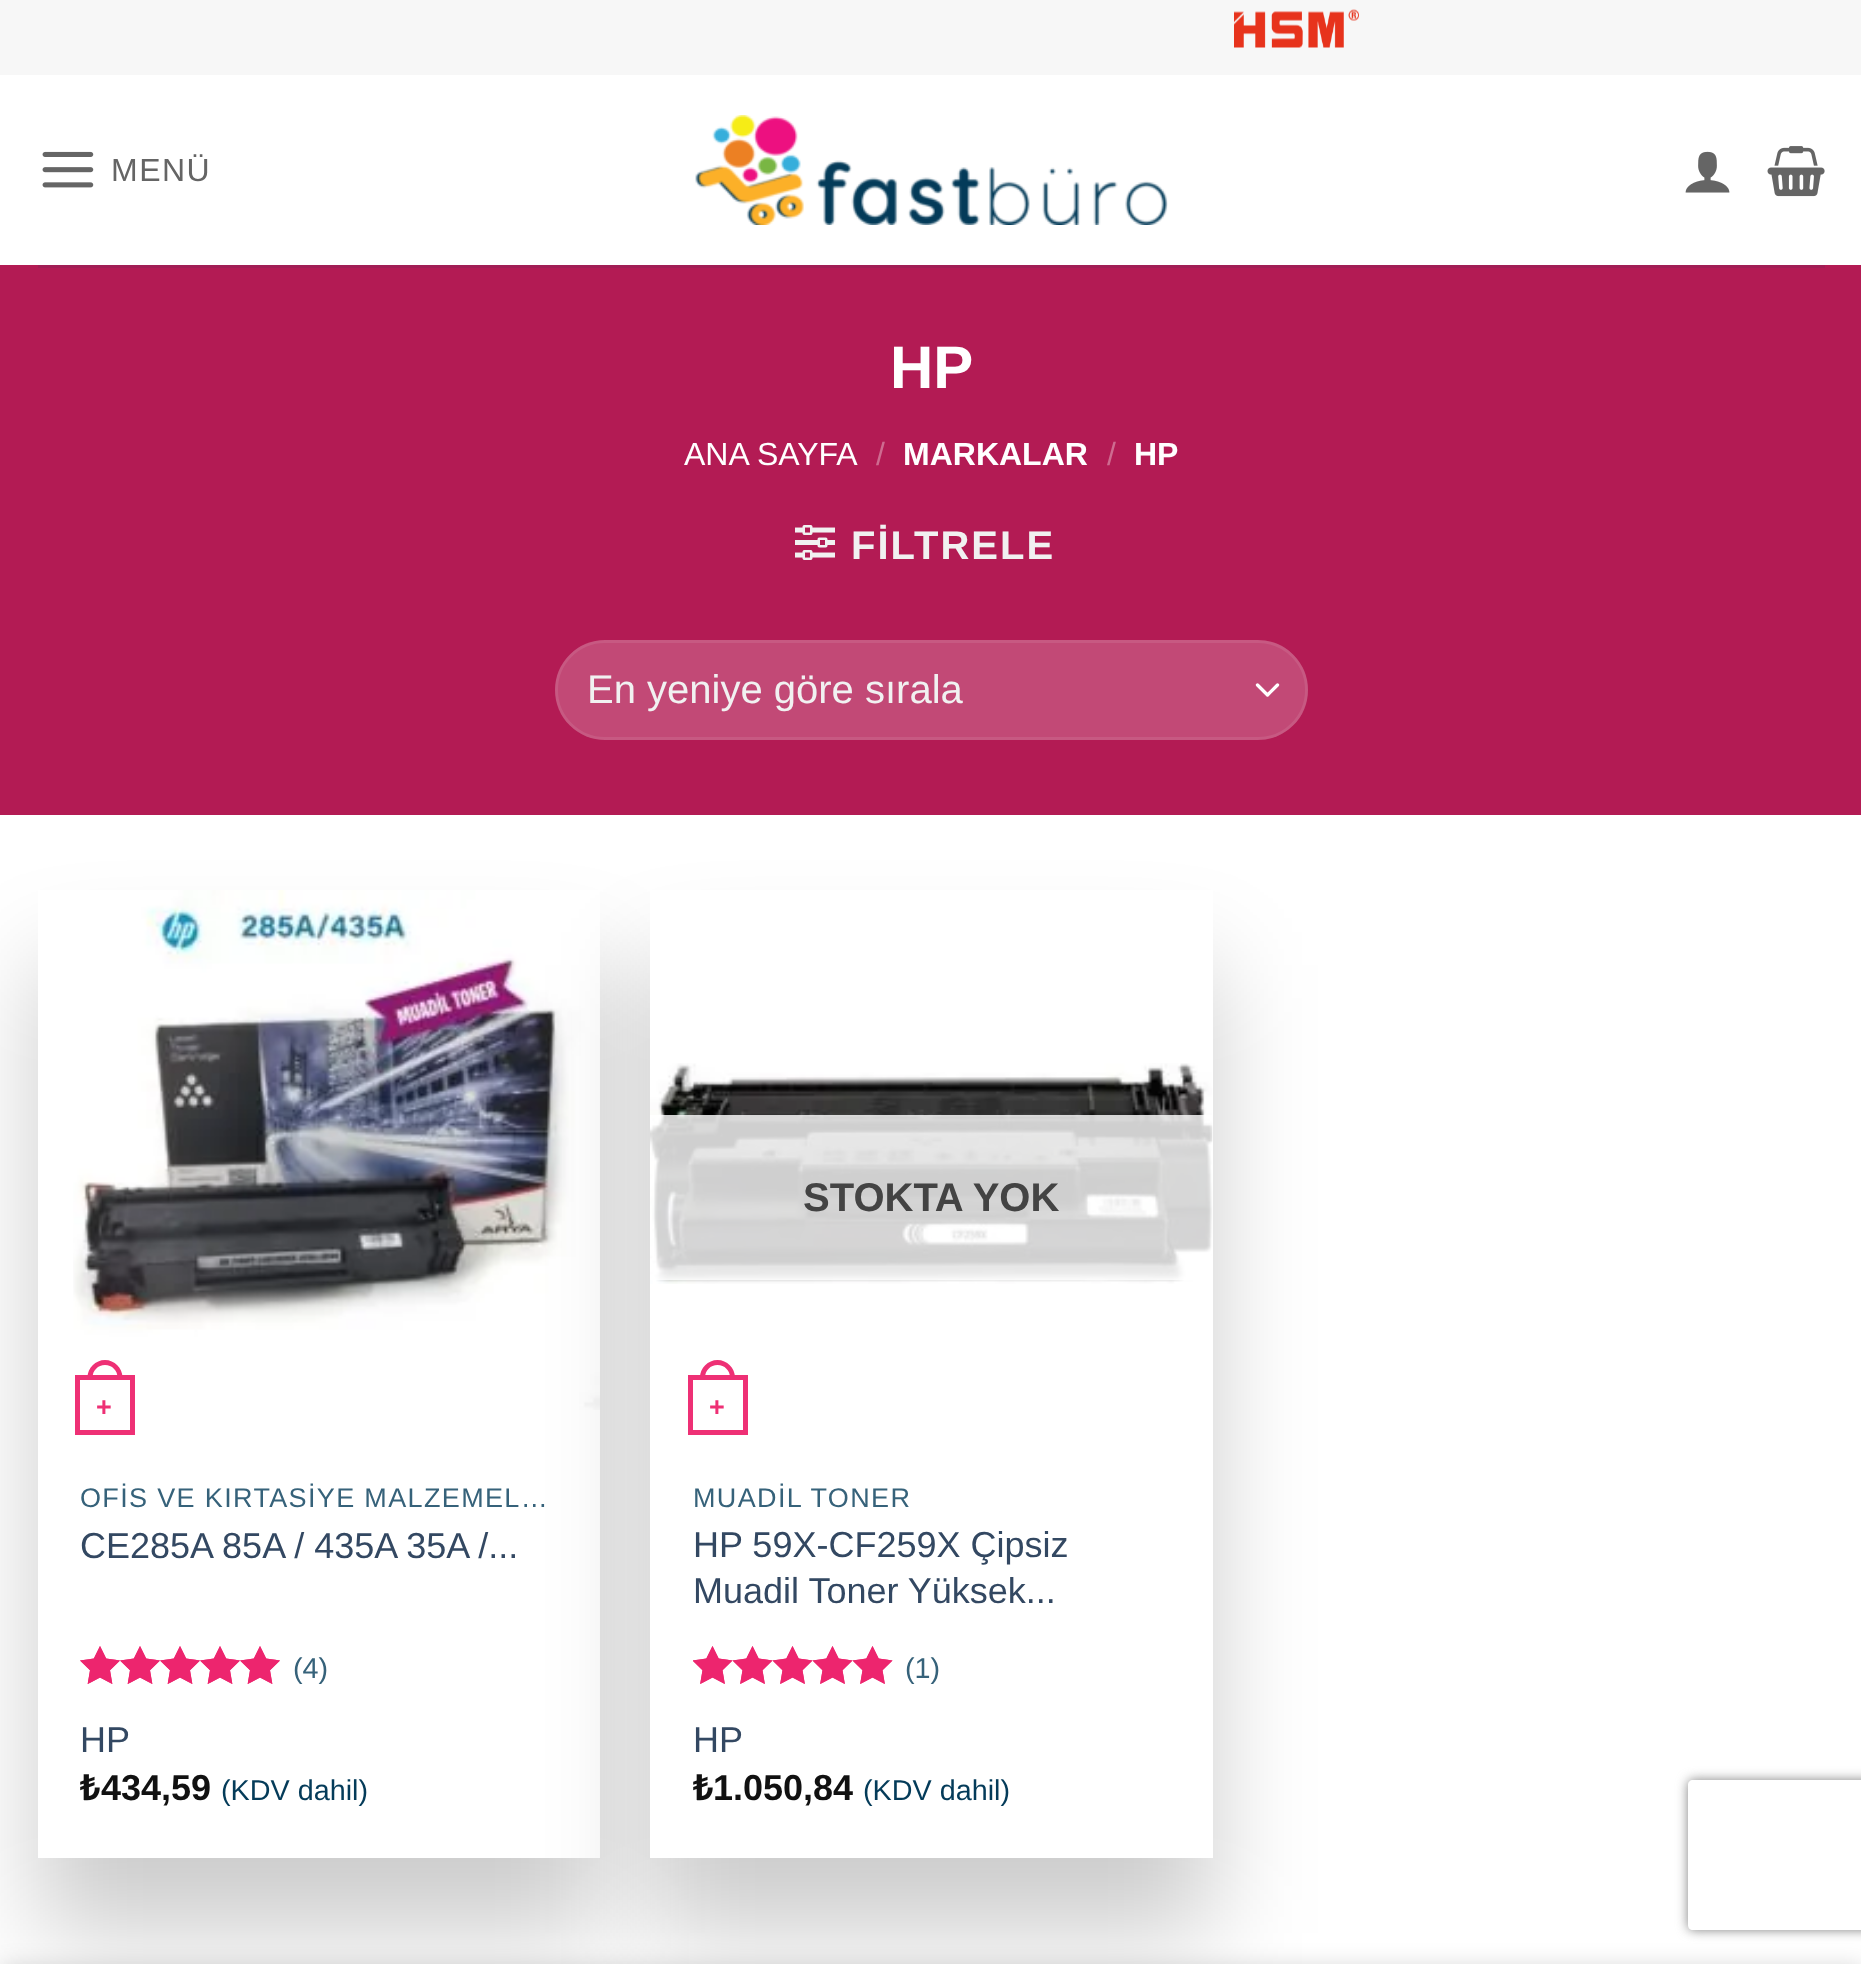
<?xml version="1.0" encoding="UTF-8"?>
<svg xmlns="http://www.w3.org/2000/svg" xmlns:xlink="http://www.w3.org/1999/xlink" width="1861" height="1964">
  <defs>
    <clipPath id="clip1"><path d="M 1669 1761 h 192 v 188 h -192 z m 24 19 h 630 c 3 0 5 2 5 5 v 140 c 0 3 -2 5 -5 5 h -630 c -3 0 -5 -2 -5 -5 v -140 c 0 -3 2 -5 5 -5 z" clip-rule="evenodd" /></clipPath>
  </defs>
  <rect width="100%" height="100%" fill="#ffffff" />
  <rect width="1861" height="75" fill="#f7f7f7" />
  <image x="1234" y="9" width="125" height="39" xlink:href="image1.png" />
  <image x="42" y="151" width="52" height="37" xlink:href="image2.png" />
  <image x="695" y="115" width="473" height="110" xlink:href="image3.png" />
  <image x="1685" y="151" width="45" height="42" xlink:href="image4.png" />
  <image x="1767" y="146" width="58" height="51" xlink:href="image5.png" />
  <rect y="265" width="1861" height="550" fill="#b31b54" />
  <rect x="38" y="265" width="1787" height="3" fill="#a11e55" />
  <image x="795" y="525" width="40" height="35" xlink:href="image6.png" />
  <rect x="555" y="640" width="753" height="100" rx="50" fill="#c24976" />
  <path d="M 1257.5 685 l 10 10 l 10 -10" fill="none" stroke="#ffffff" stroke-width="3.3" stroke-linecap="round" stroke-linejoin="round" />
  <rect x="556.5" y="641.5" width="750" height="97" rx="48.5" fill="none" stroke="#ffffff" stroke-opacity="0.09" stroke-width="3" />
  <rect x="38" y="965" width="562" height="968" fill="#000000" fill-opacity="0.2" filter="blur(50px)" />
  <rect x="38" y="890" width="562" height="968" fill="#ffffff" />
  <image x="73" y="890" width="527" height="520" xlink:href="image7.png" />
  <rect x="77.5" y="1377.5" width="55" height="55" fill="none" stroke="#ee3075" stroke-width="5" />
  <path d="M 105 1360 c 9.5 0 17.5 8 17.5 17.5 v 2.5 h -35 v -2.5 c 0 -9.5 8 -17.5 17.5 -17.5 z m 0 5 c 7 0 12.5 5.5 12.5 12.5 v 2.5 h -25 v -2.5 c 0 -7 5.5 -12.5 12.5 -12.5 z" fill="#ee3075" fill-rule="evenodd" />
  <image x="80" y="1646" width="200" height="38" xlink:href="image8.png" />
  <image x="80" y="1646" width="200" height="38" xlink:href="image9.png" />
  <rect x="650" y="965" width="563" height="968" fill="#000000" fill-opacity="0.2" filter="blur(50px)" />
  <rect x="650" y="890" width="563" height="968" fill="#ffffff" />
  <image x="650" y="1063" width="563" height="221" xlink:href="image10.png" />
  <rect x="650" y="1115" width="563" height="165" fill="#ffffff" fill-opacity="0.81" />
  <rect x="690.5" y="1377.5" width="55" height="55" fill="none" stroke="#ee3075" stroke-width="5" />
  <path d="M 717.5 1360 c 9.5 0 17.5 8 17.5 17.5 v 2.5 h -35 v -2.5 c 0 -9.5 8 -17.5 17.5 -17.5 z m 0 5 c 7 0 12.5 5.5 12.5 12.5 v 2.5 h -25 v -2.5 c 0 -7 5.5 -12.5 12.5 -12.5 z" fill="#ee3075" fill-rule="evenodd" />
  <image x="693" y="1646" width="200" height="38" xlink:href="image11.png" />
  <image x="693" y="1646" width="200" height="38" xlink:href="image12.png" />
  <g clip-path="url(#clip1)">
    <rect x="1688" y="1780" width="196" height="150" rx="5" fill="#808080" filter="blur(6px)" />
  </g>
  <rect y="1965" width="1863" height="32" fill="#000000" fill-opacity="0.14" filter="blur(11px)" />
  <text x="111" y="181" style="font-family: Liberation Sans; font-size: 32px; letter-spacing: 1.5px; fill: #656565">MENÜ</text>
  <text x="890" y="388" style="font-family: Liberation Sans; font-size: 60px; font-weight: bold; fill: #ffffff">HP</text>
  <text x="684" y="465" style="font-family: Liberation Sans; font-size: 32px; fill: #ffffff">ANA SAYFA</text>
  <text x="876" y="465" style="font-family: Liberation Sans; font-size: 32px; fill: #ce6b90">/</text>
  <text x="903" y="465" style="font-family: Liberation Sans; font-size: 32px; font-weight: bold; fill: #ffffff">MARKALAR</text>
  <text x="1107" y="465" style="font-family: Liberation Sans; font-size: 32px; fill: #ce6b90">/</text>
  <text x="1134" y="465" style="font-family: Liberation Sans; font-size: 32px; font-weight: bold; fill: #ffffff">HP</text>
  <text x="851" y="559" style="font-family: Liberation Sans; font-size: 40px; font-weight: bold; letter-spacing: 2px; fill: #f1f1f1">FİLTRELE</text>
  <text x="587" y="703" style="font-family: Liberation Sans; font-size: 40px; fill: #f1f1f1">En yeniye göre sırala</text>
  <text x="96" y="1416" style="font-family: Liberation Sans; font-size: 27px; font-weight: bold; fill: #ee3075">+</text>
  <text x="80" y="1507" style="font-family: Liberation Sans; font-size: 27px; letter-spacing: 1.35px; fill: #36627a">OFİS VE KIRTASİYE MALZEMEL…</text>
  <text x="80" y="1558" style="font-family: Liberation Sans; font-size: 36px; fill: #334862">CE285A 85A / 435A 35A /...</text>
  <text x="293" y="1678" style="font-family: Liberation Sans; font-size: 28.75px; fill: #36627a">(4)</text>
  <text x="80" y="1752" style="font-family: Liberation Sans; font-size: 36px; fill: #334862">HP</text>
  <text x="80" y="1800" style="font-family: Noto Sans; font-size: 36px; font-weight: bold; fill: #111111">₺</text>
  <text x="101" y="1800" style="font-family: Liberation Sans; font-size: 36px; font-weight: bold; fill: #111111">434,59</text>
  <text x="221" y="1800" style="font-family: Liberation Sans; font-size: 28.75px; fill: #043b59">(KDV dahil)</text>
  <text x="803" y="1211" style="font-family: Liberation Sans; font-size: 40px; font-weight: bold; fill: #434343">STOKTA YOK</text>
  <text x="709" y="1416" style="font-family: Liberation Sans; font-size: 27px; font-weight: bold; fill: #ee3075">+</text>
  <text x="693" y="1507" style="font-family: Liberation Sans; font-size: 27px; letter-spacing: 1.35px; fill: #36627a">MUADİL TONER</text>
  <text x="693" y="1557" style="font-family: Liberation Sans; font-size: 36px; fill: #334862">HP 59X-CF259X Çipsiz</text>
  <text x="693" y="1603" style="font-family: Liberation Sans; font-size: 36px; fill: #334862">Muadil Toner Yüksek...</text>
  <text x="905" y="1678" style="font-family: Liberation Sans; font-size: 28.75px; fill: #36627a">(1)</text>
  <text x="693" y="1752" style="font-family: Liberation Sans; font-size: 36px; fill: #334862">HP</text>
  <text x="693" y="1800" style="font-family: Noto Sans; font-size: 36px; font-weight: bold; fill: #111111">₺</text>
  <text x="713" y="1800" style="font-family: Liberation Sans; font-size: 36px; font-weight: bold; fill: #111111">1.050,84</text>
  <text x="863" y="1800" style="font-family: Liberation Sans; font-size: 28.75px; fill: #043b59">(KDV dahil)</text>
</svg>
